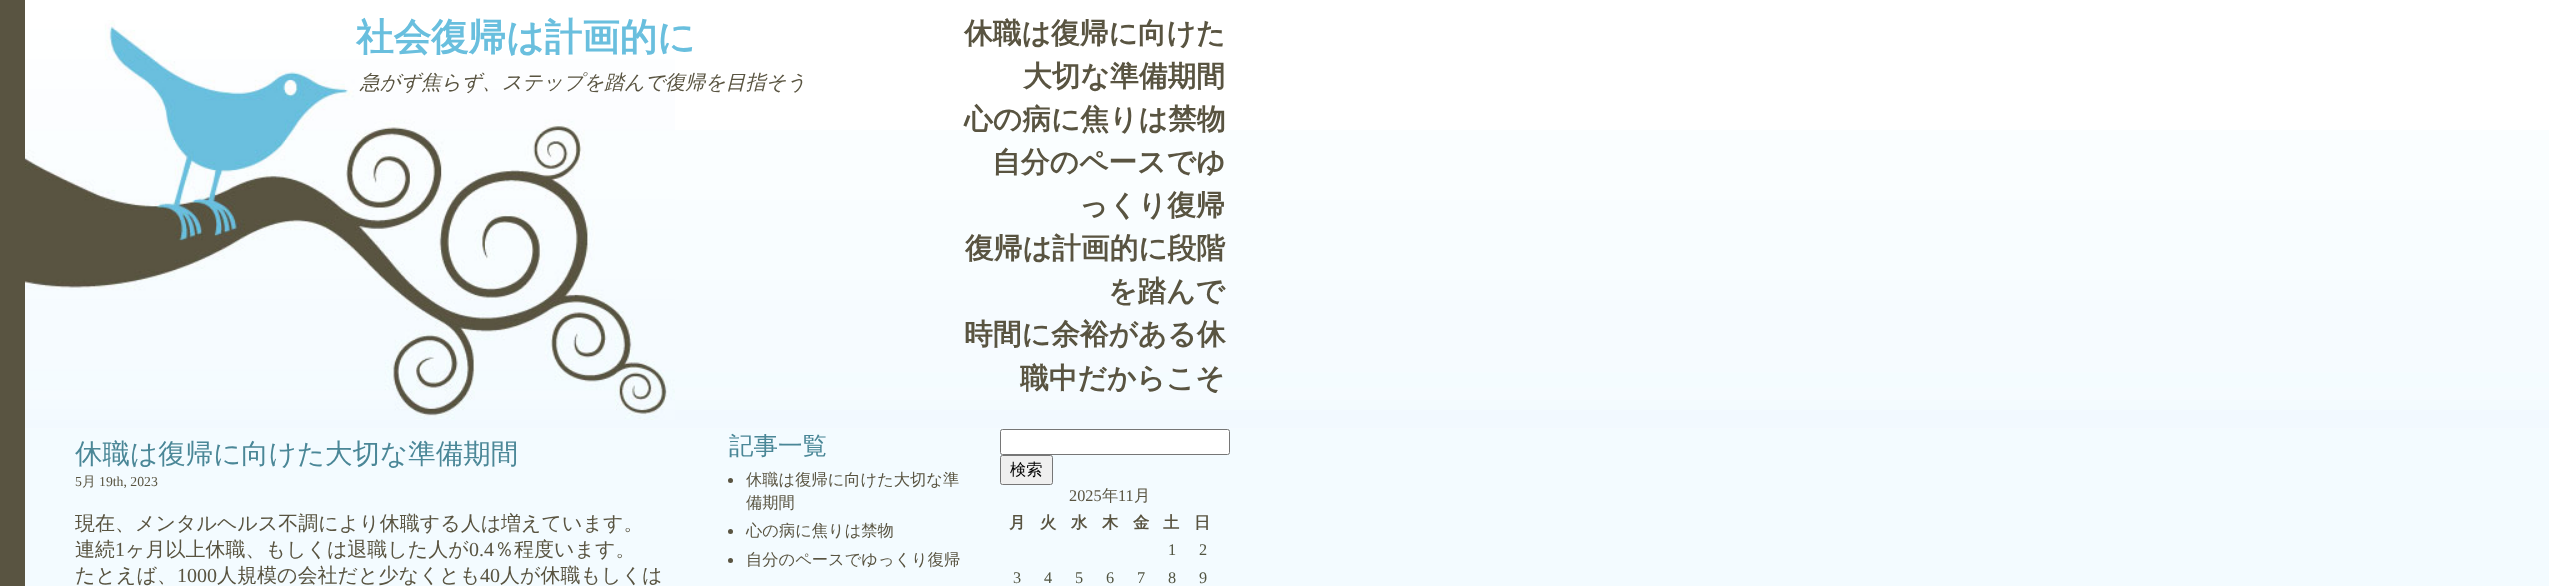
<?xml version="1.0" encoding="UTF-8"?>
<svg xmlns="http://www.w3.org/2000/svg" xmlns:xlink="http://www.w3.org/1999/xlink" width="2549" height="586">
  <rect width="100%" height="100%" fill="#f3fbff" />
  <rect width="25" height="586" fill="#595441" />
  <rect x="25" width="2524" height="429" fill="#ffffff" />
  <image x="25" y="130" width="2524" height="299" xlink:href="image1.png" />
  <image x="25" y="20" width="650" height="400" xlink:href="image2.png" />
  <circle cx="730.5" cy="480.5" r="2.5" fill="#595441" />
  <circle cx="730.5" cy="531.5" r="2.5" fill="#595441" />
  <circle cx="730.5" cy="560.5" r="2.5" fill="#595441" />
  <rect x="1000.5" y="429.5" width="229" height="25" rx="2" fill="#ffffff" stroke="#767676" />
  <rect x="1000.5" y="455.5" width="52" height="29" rx="2" fill="#efefef" stroke="#767676" />
  <text x="356" y="50" style="font-family: WenQuanYi Zen Hei; font-size: 37.5px; font-weight: bold; fill: #69bfde">社会復帰は計画的に</text>
  <text x="360" y="89" style="font-family: WenQuanYi Zen Hei; font-size: 20px; font-weight: 500; font-style: italic; fill: #595441">急がず焦らず、ステップを踏んで復帰を目指そう</text>
  <text x="964" y="43" style="font-family: WenQuanYi Zen Hei; font-size: 28.75px; font-weight: bold; fill: #595441">休職は復帰に向けた</text>
  <text x="1023" y="86" style="font-family: WenQuanYi Zen Hei; font-size: 28.75px; font-weight: bold; fill: #595441">大切な準備期間</text>
  <text x="964" y="129" style="font-family: WenQuanYi Zen Hei; font-size: 28.75px; font-weight: bold; fill: #595441">心の病に焦りは禁物</text>
  <text x="992" y="172" style="font-family: WenQuanYi Zen Hei; font-size: 28.75px; font-weight: bold; fill: #595441">自分のペースでゆ</text>
  <text x="1079" y="215" style="font-family: WenQuanYi Zen Hei; font-size: 28.75px; font-weight: bold; fill: #595441">っくり復帰</text>
  <text x="965" y="258" style="font-family: WenQuanYi Zen Hei; font-size: 28.75px; font-weight: bold; fill: #595441">復帰は計画的に段階</text>
  <text x="1108" y="301" style="font-family: WenQuanYi Zen Hei; font-size: 28.75px; font-weight: bold; fill: #595441">を踏んで</text>
  <text x="964" y="344" style="font-family: WenQuanYi Zen Hei; font-size: 28.75px; font-weight: bold; fill: #595441">時間に余裕がある休</text>
  <text x="1020" y="388" style="font-family: WenQuanYi Zen Hei; font-size: 28.75px; font-weight: bold; fill: #595441">職中だからこそ</text>
  <text x="75" y="463" style="font-family: WenQuanYi Zen Hei; font-size: 27.5px; font-weight: 500; fill: #4a8797">休職は復帰に向けた大切な準備期間</text>
  <text x="75" y="486" style="font-family: Liberation Serif; font-size: 13.75px; fill: #595441">5</text>
  <text x="82" y="486" style="font-family: WenQuanYi Zen Hei; font-size: 13.75px; font-weight: 500; fill: #595441">月</text>
  <text x="99" y="486" style="font-family: Liberation Serif; font-size: 13.75px; fill: #595441">19th, 2023</text>
  <text x="75" y="530" style="font-family: WenQuanYi Zen Hei; font-size: 20px; font-weight: 500; fill: #595441">現在、メンタルヘルス不調により休職する人は増えています。</text>
  <text x="75" y="556" style="font-family: WenQuanYi Zen Hei; font-size: 20px; font-weight: 500; fill: #595441">連続</text>
  <text x="115" y="556" style="font-family: Liberation Serif; font-size: 20px; fill: #595441">1</text>
  <text x="125" y="556" style="font-family: WenQuanYi Zen Hei; font-size: 20px; font-weight: 500; fill: #595441">ヶ月以上休職、もしくは退職した人が</text>
  <text x="469" y="556" style="font-family: Liberation Serif; font-size: 20px; fill: #595441">0.4</text>
  <text x="494" y="556" style="font-family: WenQuanYi Zen Hei; font-size: 20px; font-weight: 500; fill: #595441">％程度います。</text>
  <text x="75" y="582" style="font-family: WenQuanYi Zen Hei; font-size: 20px; font-weight: 500; fill: #595441">たとえば、</text>
  <text x="177" y="582" style="font-family: Liberation Serif; font-size: 20px; fill: #595441">1000</text>
  <text x="217" y="582" style="font-family: WenQuanYi Zen Hei; font-size: 20px; font-weight: 500; fill: #595441">人規模の会社だと少なくとも</text>
  <text x="480" y="582" style="font-family: Liberation Serif; font-size: 20px; fill: #595441">40</text>
  <text x="500" y="582" style="font-family: WenQuanYi Zen Hei; font-size: 20px; font-weight: 500; fill: #595441">人が休職もしくは</text>
  <text x="729" y="454" style="font-family: WenQuanYi Zen Hei; font-size: 24.5px; font-weight: 500; fill: #4a8797">記事一覧</text>
  <text x="746" y="485" style="font-family: WenQuanYi Zen Hei; font-size: 16.25px; font-weight: 500; fill: #595441">休職は復帰に向けた大切な準</text>
  <text x="746" y="508" style="font-family: WenQuanYi Zen Hei; font-size: 16.25px; font-weight: 500; fill: #595441">備期間</text>
  <text x="746" y="536" style="font-family: WenQuanYi Zen Hei; font-size: 16.25px; font-weight: 500; fill: #595441">心の病に焦りは禁物</text>
  <text x="746" y="565" style="font-family: WenQuanYi Zen Hei; font-size: 16.25px; font-weight: 500; fill: #595441">自分のペースでゆっくり復帰</text>
  <text x="1010" y="475" style="font-family: WenQuanYi Zen Hei; font-size: 16.25px; font-weight: 500; fill: #000000">検索</text>
  <text x="1069" y="501" style="font-family: Liberation Serif; font-size: 16.25px; fill: #595441">2025</text>
  <text x="1102" y="501" style="font-family: WenQuanYi Zen Hei; font-size: 16.25px; font-weight: 500; fill: #595441">年</text>
  <text x="1118" y="501" style="font-family: Liberation Serif; font-size: 16.25px; fill: #595441">11</text>
  <text x="1134" y="501" style="font-family: WenQuanYi Zen Hei; font-size: 16.25px; font-weight: 500; fill: #595441">月</text>
  <text x="1009" y="528" style="font-family: WenQuanYi Zen Hei; font-size: 16.25px; font-weight: bold; fill: #595441">月</text>
  <text x="1040" y="528" style="font-family: WenQuanYi Zen Hei; font-size: 16.25px; font-weight: bold; fill: #595441">火</text>
  <text x="1071" y="528" style="font-family: WenQuanYi Zen Hei; font-size: 16.25px; font-weight: bold; fill: #595441">水</text>
  <text x="1102" y="528" style="font-family: WenQuanYi Zen Hei; font-size: 16.25px; font-weight: bold; fill: #595441">木</text>
  <text x="1133" y="528" style="font-family: WenQuanYi Zen Hei; font-size: 16.25px; font-weight: bold; fill: #595441">金</text>
  <text x="1163" y="528" style="font-family: WenQuanYi Zen Hei; font-size: 16.25px; font-weight: bold; fill: #595441">土</text>
  <text x="1194" y="528" style="font-family: WenQuanYi Zen Hei; font-size: 16.25px; font-weight: bold; fill: #595441">日</text>
  <text x="1168" y="555" style="font-family: Liberation Serif; font-size: 16.25px; fill: #515441">1</text>
  <text x="1199" y="555" style="font-family: Liberation Serif; font-size: 16.25px; fill: #515441">2</text>
  <text x="1013" y="583" style="font-family: Liberation Serif; font-size: 16.25px; fill: #515441">3</text>
  <text x="1044" y="583" style="font-family: Liberation Serif; font-size: 16.25px; fill: #515441">4</text>
  <text x="1075" y="583" style="font-family: Liberation Serif; font-size: 16.25px; fill: #515441">5</text>
  <text x="1106" y="583" style="font-family: Liberation Serif; font-size: 16.25px; fill: #515441">6</text>
  <text x="1137" y="583" style="font-family: Liberation Serif; font-size: 16.25px; fill: #515441">7</text>
  <text x="1168" y="583" style="font-family: Liberation Serif; font-size: 16.25px; fill: #515441">8</text>
  <text x="1199" y="583" style="font-family: Liberation Serif; font-size: 16.25px; fill: #515441">9</text>
</svg>
